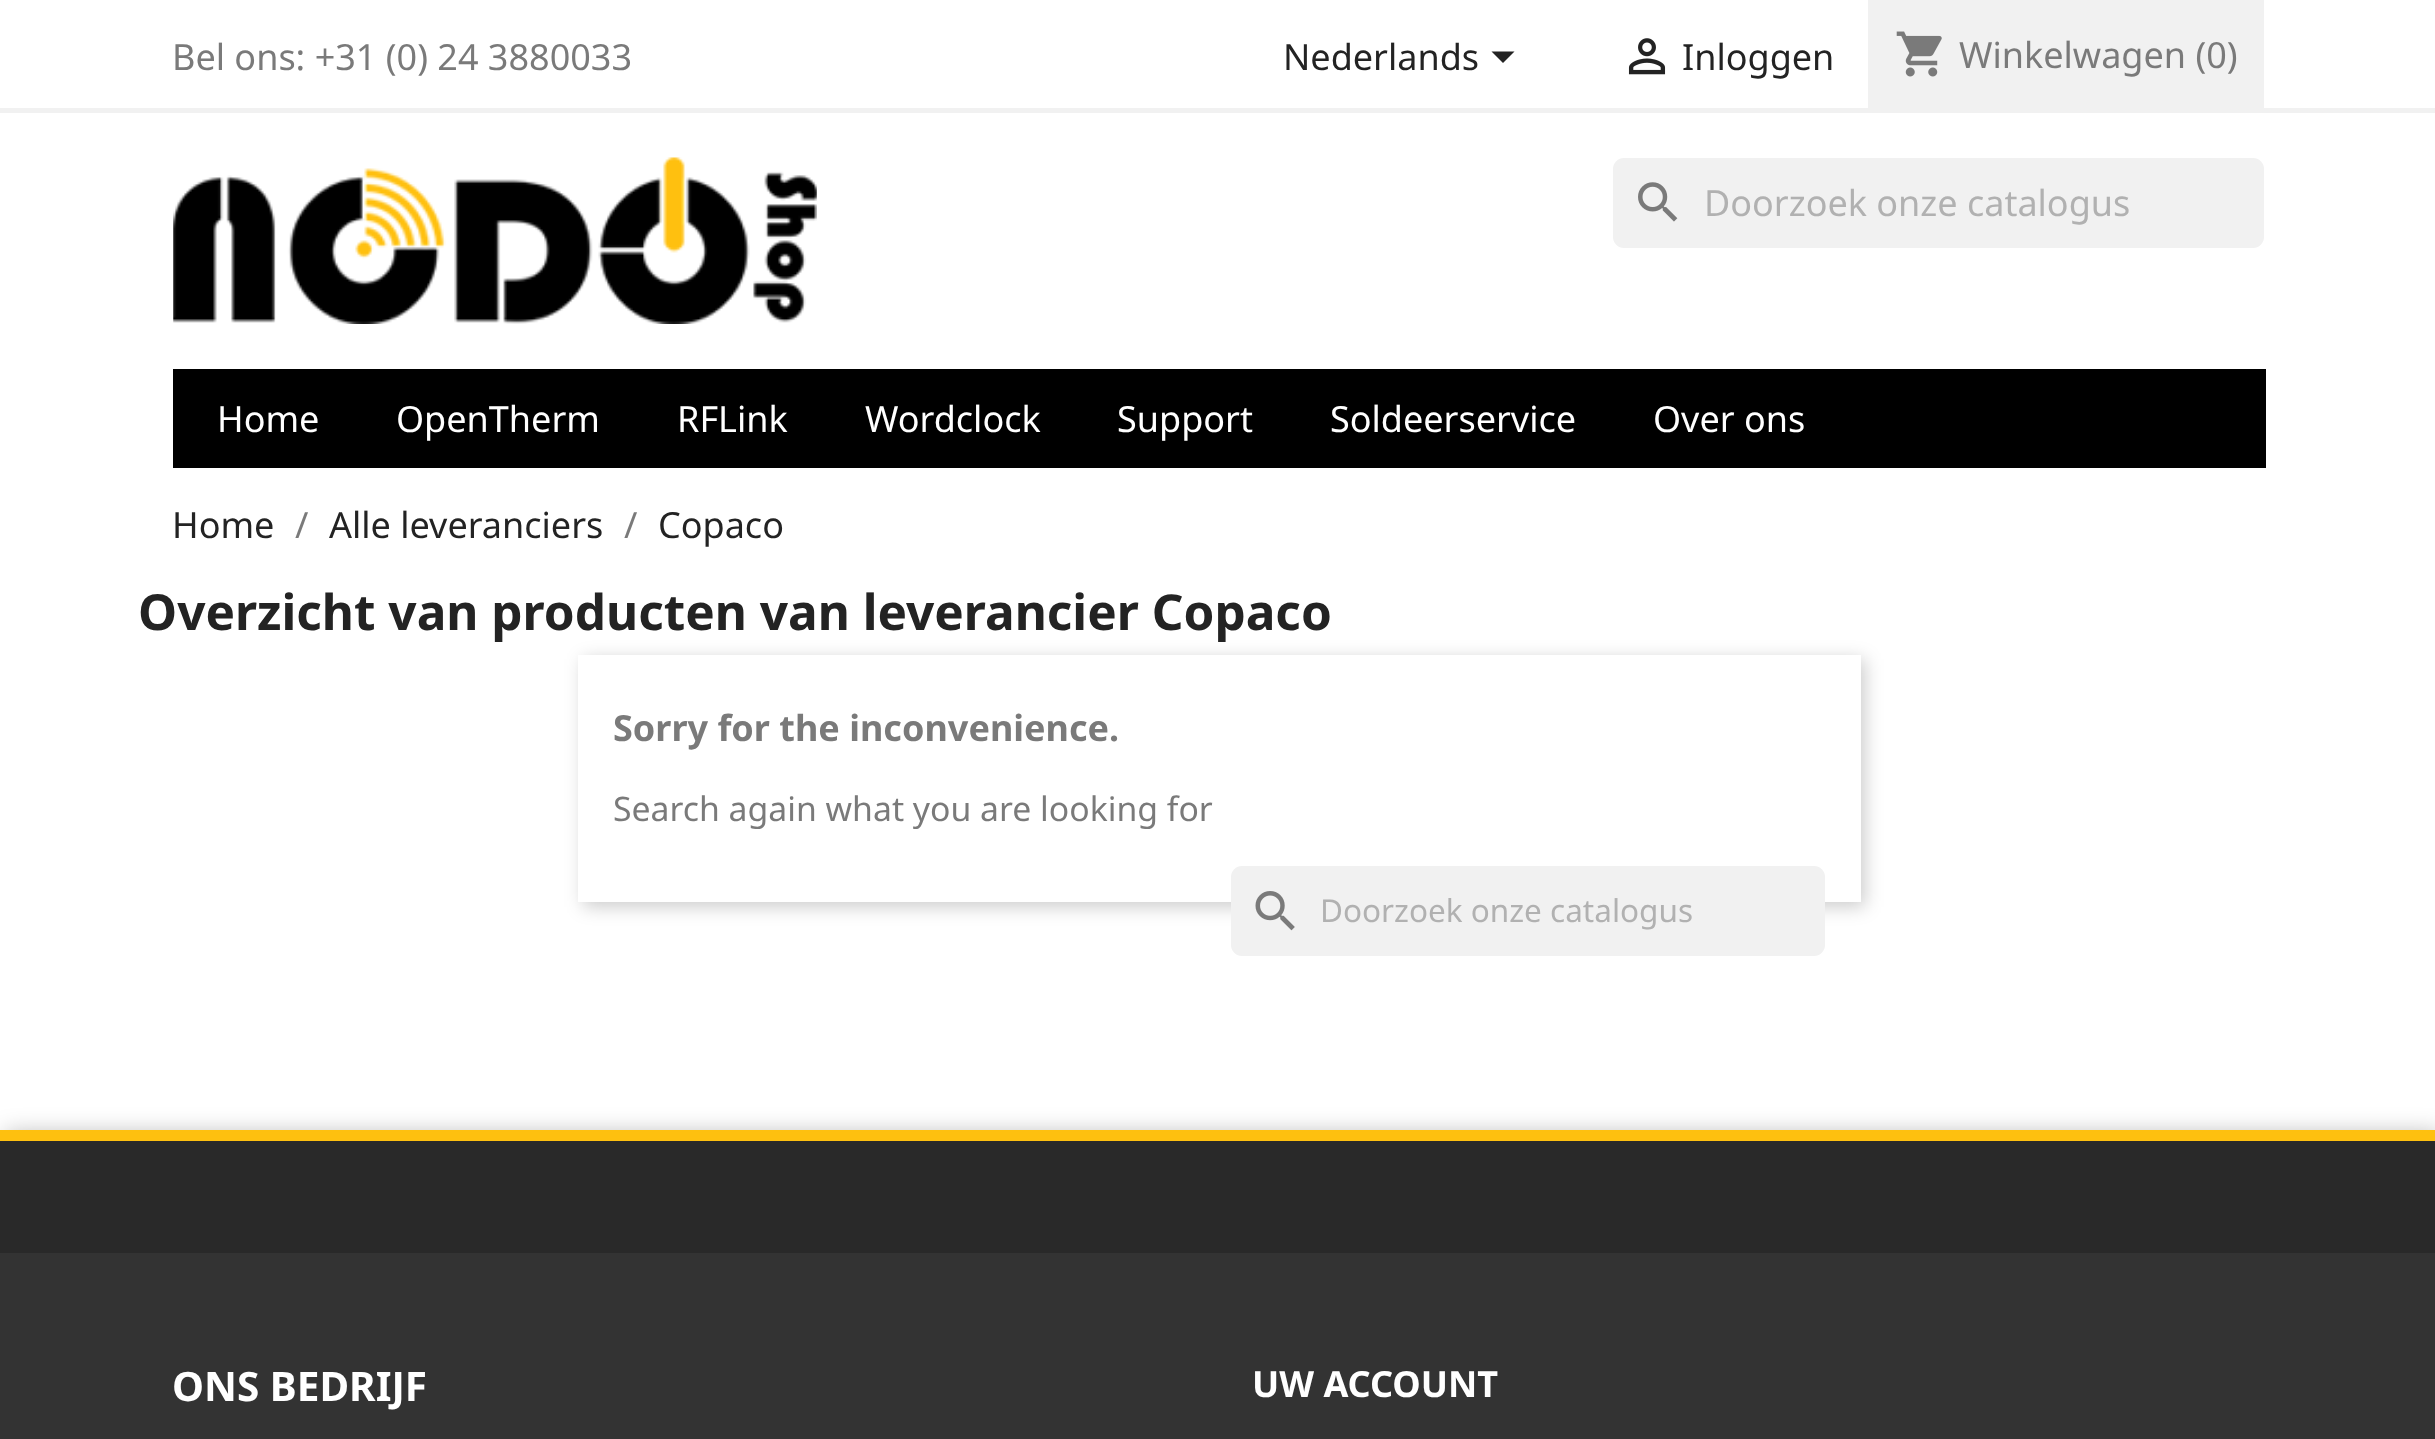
<?xml version="1.0" encoding="UTF-8"?>
<svg xmlns="http://www.w3.org/2000/svg" xmlns:xlink="http://www.w3.org/1999/xlink" width="2435" height="1439">
  <rect width="100%" height="100%" fill="#ffffff" />
  <rect y="108" width="2435" height="5" fill="#f1f1f1" />
  <path d="M 1491.5 51.5 h 23 l -11.5 11.5 z" fill="#232323" />
  <image x="1628" y="38" width="38" height="37" xlink:href="image1.png" />
  <rect x="1868" width="396" height="108" fill="#f1f1f1" />
  <image x="1896" y="31" width="46" height="46" xlink:href="image2.png" />
  <image x="173" y="157" width="644" height="167" xlink:href="image3.png" />
  <rect x="1613" y="158" width="651" height="90" rx="11" fill="#f1f1f1" />
  <image x="1638" y="182" width="40" height="40" xlink:href="image4.png" />
  <rect x="173" y="369" width="2093" height="99" fill="#000000" />
  <rect x="583" y="659" width="1282" height="248" fill="#000000" fill-opacity="0.2" filter="blur(9px)" />
  <rect x="578" y="655" width="1283" height="247" fill="#ffffff" />
  <rect x="1231" y="866" width="594" height="90" rx="11" fill="#f1f1f1" />
  <image x="1255" y="891" width="40" height="40" xlink:href="image5.png" />
  <rect x="5" y="1134" width="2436" height="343" fill="#000000" fill-opacity="0.3" filter="blur(12.5px)" />
  <rect y="1253" width="2435" height="186" fill="#333333" />
  <rect y="1130" width="2435" height="11" fill="#fec00f" />
  <rect y="1141" width="2435" height="112" fill="#292929" />
  <text x="172" y="70" style="font-family: Noto Sans; font-size: 36px; fill: #7a7a7a">Bel ons: +31 (0) 24 3880033</text>
  <text x="1283" y="70" style="font-family: Noto Sans; font-size: 36px; fill: #232323">Nederlands</text>
  <text x="1682" y="70" style="font-family: Noto Sans; font-size: 36px; fill: #232323">Inloggen</text>
  <text x="1959" y="68" style="font-family: Noto Sans; font-size: 36px; fill: #7a7a7a">Winkelwagen (0)</text>
  <text x="1704" y="216" style="font-family: Noto Sans; font-size: 36px; fill: #b1b1b1">Doorzoek onze catalogus</text>
  <text x="217" y="432" style="font-family: Noto Sans; font-size: 36px; fill: #ffffff">Home</text>
  <text x="396" y="432" style="font-family: Noto Sans; font-size: 36px; fill: #ffffff">OpenTherm</text>
  <text x="677" y="432" style="font-family: Noto Sans; font-size: 36px; fill: #ffffff">RFLink</text>
  <text x="865" y="432" style="font-family: Noto Sans; font-size: 36px; fill: #ffffff">Wordclock</text>
  <text x="1117" y="432" style="font-family: Noto Sans; font-size: 36px; fill: #ffffff">Support</text>
  <text x="1330" y="432" style="font-family: Noto Sans; font-size: 36px; fill: #ffffff">Soldeerservice</text>
  <text x="1653" y="432" style="font-family: Noto Sans; font-size: 36px; fill: #ffffff">Over ons</text>
  <text x="172" y="538" style="font-family: Noto Sans; font-size: 36px; fill: #232323">Home</text>
  <text x="295" y="538" style="font-family: Noto Sans; font-size: 36px; fill: #7a7a7a">/</text>
  <text x="329" y="538" style="font-family: Noto Sans; font-size: 36px; fill: #232323">Alle leveranciers</text>
  <text x="624" y="538" style="font-family: Noto Sans; font-size: 36px; fill: #7a7a7a">/</text>
  <text x="658" y="538" style="font-family: Noto Sans; font-size: 36px; fill: #232323">Copaco</text>
  <text x="138" y="630" style="font-family: Noto Sans; font-size: 49.5px; font-weight: bold; fill: #232323">Overzicht van producten van leverancier Copaco</text>
  <text x="613" y="741" style="font-family: Noto Sans; font-size: 36px; font-weight: bold; fill: #7a7a7a">Sorry for the inconvenience.</text>
  <text x="613" y="821" style="font-family: Noto Sans; font-size: 33.75px; fill: #7a7a7a">Search again what you are looking for</text>
  <text x="1320" y="922" style="font-family: Noto Sans; font-size: 31.5px; fill: #b1b1b1">Doorzoek onze catalogus</text>
  <text x="172" y="1401" style="font-family: Noto Sans; font-size: 40.5px; font-weight: bold; fill: #ffffff">ONS BEDRIJF</text>
  <text x="1252" y="1397" style="font-family: Noto Sans; font-size: 36px; font-weight: bold; fill: #ffffff">UW ACCOUNT</text>
</svg>
